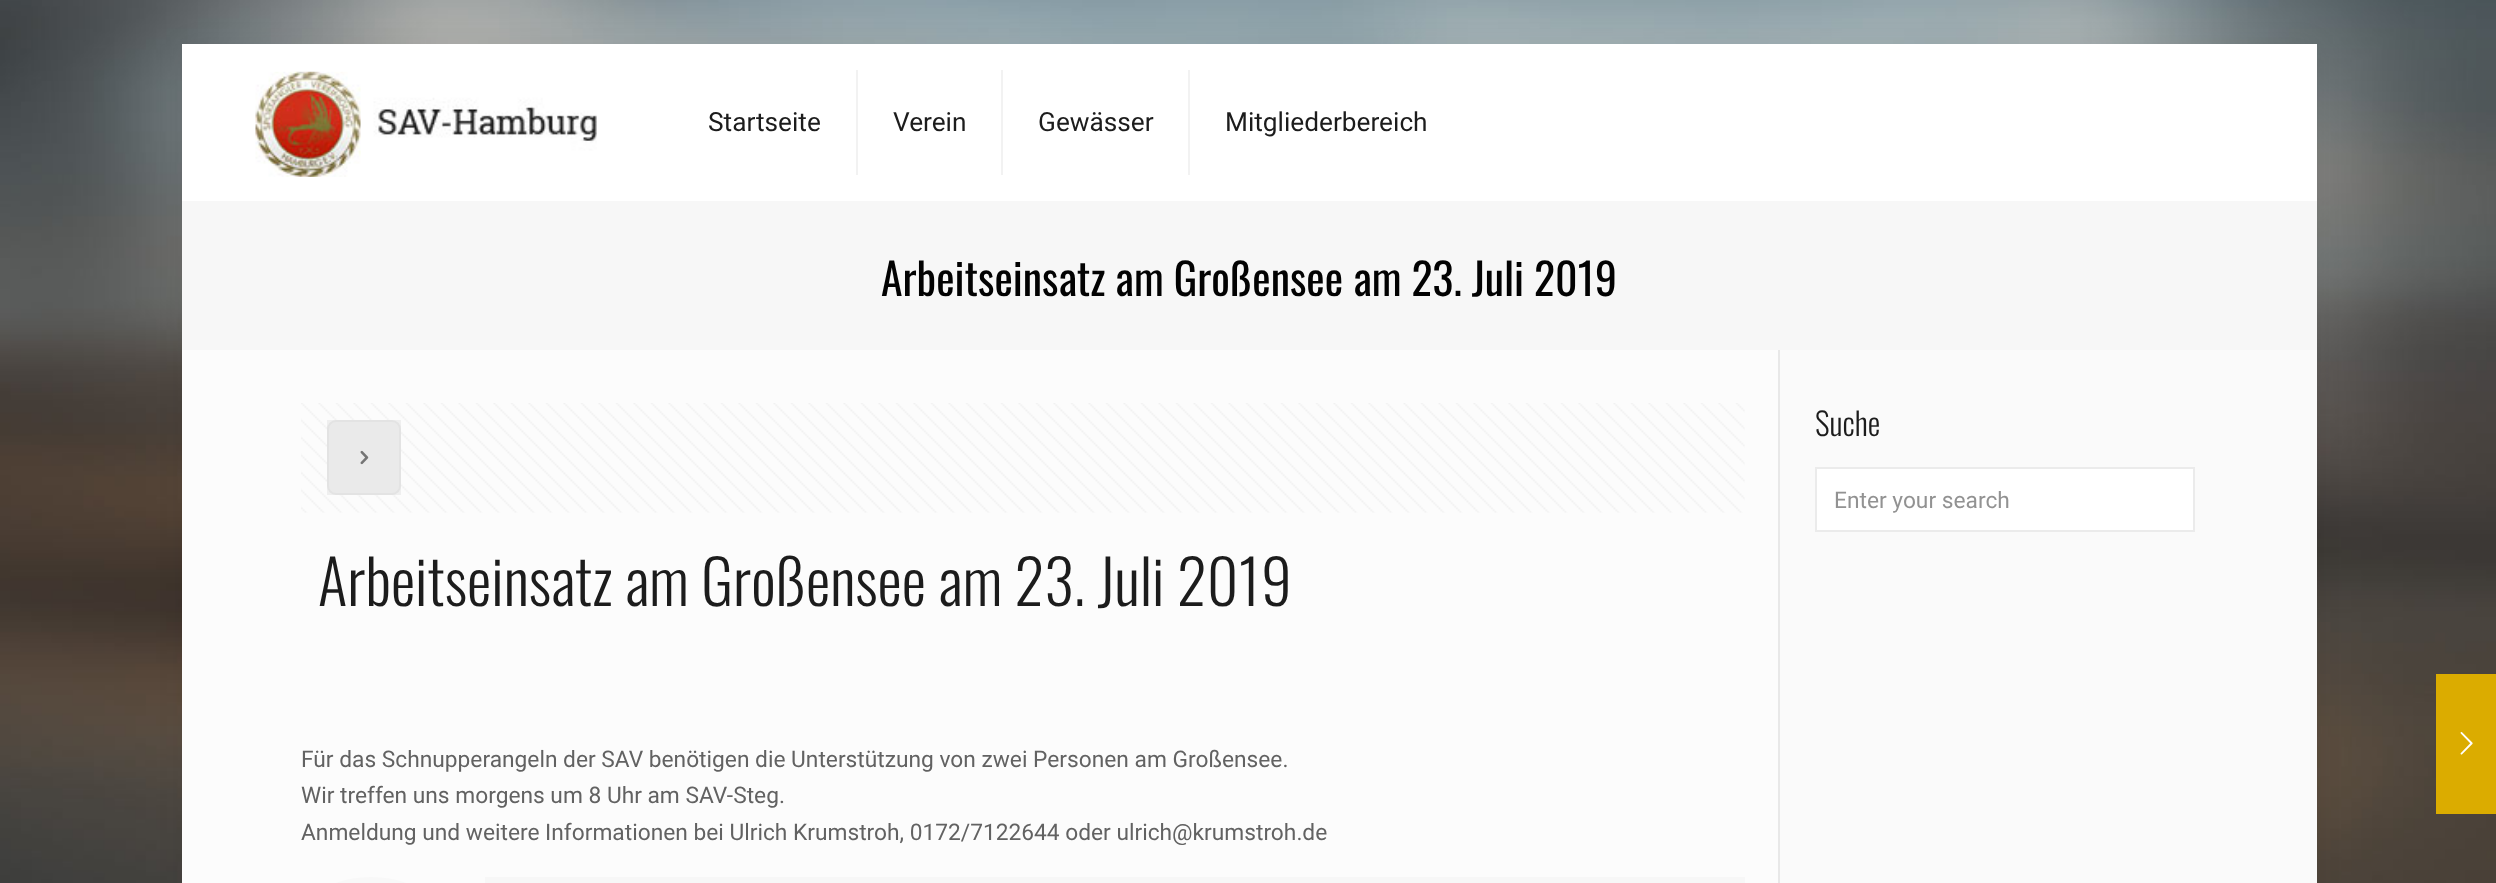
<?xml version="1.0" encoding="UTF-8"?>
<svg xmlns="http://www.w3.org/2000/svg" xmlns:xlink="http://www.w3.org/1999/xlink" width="2496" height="883">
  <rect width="100%" height="100%" fill="#ffffff" />
  <image x="0" y="0" width="2496" height="883" xlink:href="image1.png" />
  <rect x="182" y="44" width="2135" height="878" fill="#000000" fill-opacity="0.06" filter="blur(13px)" />
  <rect x="182" y="350" width="1596" height="533" fill="#fcfcfc" />
  <rect x="182" y="44" width="2135" height="157" fill="#ffffff" />
  <image x="255" y="71" width="342" height="106" xlink:href="image2.png" />
  <rect x="856" y="70" width="2" height="105" fill="#f2f2f2" />
  <rect x="1001" y="70" width="2" height="105" fill="#f2f2f2" />
  <rect x="1188" y="70" width="2" height="105" fill="#f2f2f2" />
  <rect x="182" y="201" width="2135" height="149" fill="#f7f7f7" />
  <rect x="1778" y="350" width="2" height="533" fill="#e8e8e8" />
  <rect x="1780" y="350" width="537" height="533" fill="#fafafa" />
  <rect x="1816" y="468" width="378" height="63" fill="#ffffff" stroke="#ebebeb" stroke-width="2" />
  <image x="301" y="403" width="1444" height="110" xlink:href="image3.png" />
  <rect x="328" y="421" width="72" height="73" rx="8" fill="#f7f7f7" stroke="#f0f0f0" stroke-width="2" />
  <rect x="327" y="420" width="74" height="75" fill="#000000" fill-opacity="0.05" />
  <image x="360" y="450" width="9" height="15" xlink:href="image4.png" />
  <rect x="308" y="884" width="126" height="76" rx="63" fill="none" stroke="#f8f8f8" stroke-width="14" />
  <rect x="485" y="877" width="1260" height="6" fill="#f7f7f7" />
  <rect x="2436" y="674" width="60" height="140" fill="#dbac00" />
  <image x="2460" y="732" width="13" height="23" xlink:href="image5.png" />
  <text x="708" y="131" style="font-family: Roboto; font-size: 26.25px; fill: #1c1c1c">Startseite</text>
  <text x="893" y="131" style="font-family: Roboto; font-size: 26.25px; fill: #1c1c1c">Verein</text>
  <text x="1038" y="131" style="font-family: Roboto; font-size: 26.25px; fill: #1c1c1c">Gewässer</text>
  <text x="1225" y="131" style="font-family: Roboto; font-size: 26.25px; fill: #1c1c1c">Mitgliederbereich</text>
  <text x="881" y="296" style="font-family: Oswald; font-size: 43.75px; fill: #020202">Arbeitseinsatz am Großensee am 23. Juli 2019</text>
  <text x="1815" y="436" style="font-family: Oswald; font-size: 31.5px; font-weight: 300; fill: #1c1c1c">Suche</text>
  <text x="1834" y="508" style="font-family: Roboto; font-size: 22.75px; fill: #929292">Enter your search</text>
  <text x="318" y="606" style="font-family: Oswald; font-size: 61.25px; font-weight: 300; fill: #1c1c1c">Arbeitseinsatz am Großensee am 23. Juli 2019</text>
  <text x="301" y="767" style="font-family: Roboto; font-size: 22.75px; fill: #626262">Für das Schnupperangeln der SAV benötigen die Unterstützung von zwei Personen am Großensee.</text>
  <text x="301" y="803" style="font-family: Roboto; font-size: 22.75px; fill: #626262">Wir treffen uns morgens um 8 Uhr am SAV-Steg.</text>
  <text x="301" y="840" style="font-family: Roboto; font-size: 22.75px; fill: #626262">Anmeldung und weitere Informationen bei Ulrich Krumstroh, 0172/7122644 oder ulrich@krumstroh.de</text>
</svg>
